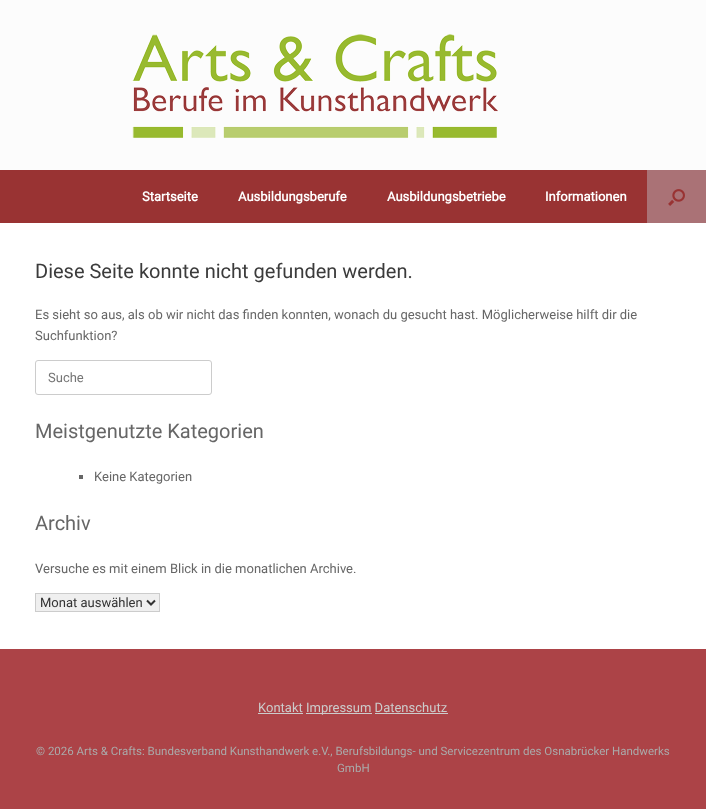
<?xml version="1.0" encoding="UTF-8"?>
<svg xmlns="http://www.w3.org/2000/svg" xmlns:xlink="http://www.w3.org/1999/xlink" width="706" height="809">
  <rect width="100%" height="100%" fill="#ac4347" />
  <rect width="706" height="170" fill="#fcfcfc" />
  <image x="132" y="34" width="366" height="104" xlink:href="image1.png" />
  <rect y="170" width="647" height="53" fill="#993333" />
  <rect x="647" y="170" width="59" height="53" fill="#aa7276" />
  <image x="668" y="189" width="17" height="17" xlink:href="image2.png" />
  <rect y="223" width="706" height="426" fill="#ffffff" />
  <rect x="35.5" y="360.5" width="176" height="34" rx="2.5" fill="none" stroke="#cccccc" />
  <rect x="79" y="475" width="4" height="4" fill="#666666" />
  <rect x="35.5" y="593.5" width="124" height="18" fill="#efefef" stroke="#cccccc" />
  <path d="M 147 600.5 l 4 4 l 4 -4" fill="none" stroke="#333333" stroke-width="2" />
  <rect x="258" y="713" width="45" height="1" fill="#cccccc" />
  <rect x="306" y="713" width="66" height="1" fill="#cccccc" />
  <rect x="375" y="713" width="73" height="1" fill="#cccccc" />
  <text x="142" y="201" style="font-family: Roboto; font-size: 13px; font-weight: bold; fill: #ffffff">Startseite</text>
  <text x="238" y="201" style="font-family: Roboto; font-size: 13px; font-weight: bold; fill: #ffffff">Ausbildungsberufe</text>
  <text x="387" y="201" style="font-family: Roboto; font-size: 13px; font-weight: bold; fill: #ffffff">Ausbildungsbetriebe</text>
  <text x="545" y="201" style="font-family: Roboto; font-size: 13px; font-weight: bold; fill: #ffffff">Informationen</text>
  <text x="35" y="278" style="font-family: Roboto; font-size: 20px; fill: #3b3b3b">Diese Seite konnte nicht gefunden werden.</text>
  <text x="35" y="319" style="font-family: Roboto; font-size: 13px; fill: #666666">Es sieht so aus, als ob wir nicht das finden konnten, wonach du gesucht hast. Möglicherweise hilft dir die</text>
  <text x="35" y="340" style="font-family: Roboto; font-size: 13px; fill: #666666">Suchfunktion?</text>
  <text x="48" y="382" style="font-family: Roboto; font-size: 13px; fill: #757575">Suche</text>
  <text x="35" y="438" style="font-family: Roboto; font-size: 20px; fill: #666666">Meistgenutzte Kategorien</text>
  <text x="94" y="481" style="font-family: Roboto; font-size: 13px; fill: #666666">Keine Kategorien</text>
  <text x="35" y="530" style="font-family: Roboto; font-size: 20px; fill: #666666">Archiv</text>
  <text x="35" y="573" style="font-family: Roboto; font-size: 13px; fill: #666666">Versuche es mit einem Blick in die monatlichen Archive.</text>
  <text x="40" y="607" style="font-family: Roboto; font-size: 13px; fill: #333333">Monat auswählen</text>
  <text x="258" y="712" style="font-family: Roboto; font-size: 13px; fill: #cccccc">Kontakt</text>
  <text x="306" y="712" style="font-family: Roboto; font-size: 13px; fill: #cccccc">Impressum Datenschutz</text>
  <text x="36" y="755" style="font-family: Roboto; font-size: 11.5px; fill: #aaaaaa">© 2026 Arts &amp; Crafts: Bundesverband Kunsthandwerk e.V., Berufsbildungs- und Servicezentrum des Osnabrücker Handwerks</text>
  <text x="337" y="772" style="font-family: Roboto; font-size: 11.5px; fill: #aaaaaa">GmbH</text>
</svg>
